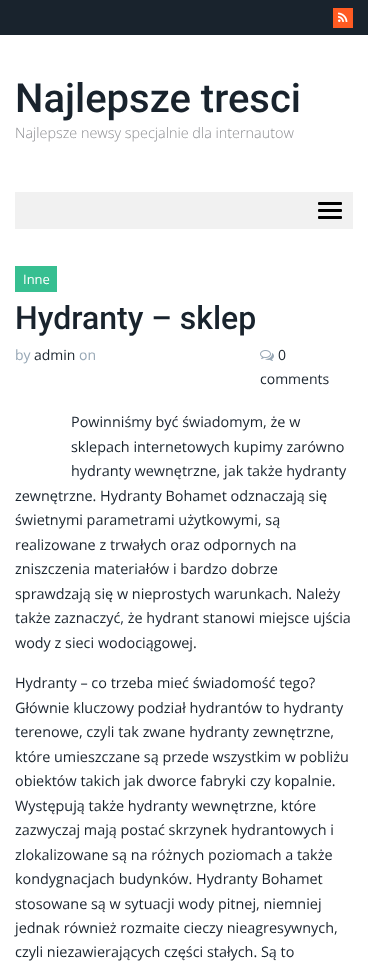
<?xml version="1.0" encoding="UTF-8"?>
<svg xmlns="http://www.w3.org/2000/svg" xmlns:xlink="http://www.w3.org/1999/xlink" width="368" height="979">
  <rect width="100%" height="100%" fill="#ffffff" />
  <rect width="368" height="35" fill="#19232d" />
  <rect x="333" y="8" width="20" height="20" fill="#ff5b22" />
  <image x="338" y="12" width="10" height="10" xlink:href="image1.png" />
  <rect x="15" y="192" width="338" height="37" fill="#f1f1f1" />
  <rect x="318" y="202" width="24" height="3" rx="1" fill="#000000" />
  <rect x="318" y="209" width="24" height="3" rx="1" fill="#000000" />
  <rect x="318" y="216" width="24" height="3" rx="1" fill="#000000" />
  <rect x="15" y="266" width="42" height="26" fill="#37bf91" />
  <image x="260" y="350" width="14" height="11" xlink:href="image2.png" />
  <text x="15" y="112" style="font-family: Roboto; font-size: 40px; font-weight: 500; fill: #19232d">Najlepsze tresci</text>
  <text x="15" y="138" style="font-family: Open Sans; font-size: 14.4px; font-weight: 300; fill: #8d8e92">Najlepsze newsy specjalnie dla internautow</text>
  <text x="23" y="284" style="font-family: Open Sans; font-size: 13px; fill: #ffffff">Inne</text>
  <text x="15" y="329" style="font-family: Roboto; font-size: 32px; font-weight: 500; fill: #19232d">Hydranty – sklep</text>
  <text x="15" y="360" style="font-family: Open Sans; font-size: 14px; fill: #97a7b5">by</text>
  <text x="34" y="360" style="font-family: Open Sans; font-size: 14px; fill: #19232d">admin</text>
  <text x="79" y="360" style="font-family: Open Sans; font-size: 14px; fill: #97a7b5">on</text>
  <text x="278" y="360" style="font-family: Open Sans; font-size: 14px; fill: #19232d">0</text>
  <text x="260" y="384" style="font-family: Open Sans; font-size: 14px; fill: #19232d">comments</text>
  <text x="71" y="427" style="font-family: Open Sans; font-size: 14.4px; fill: #19232d">Powinniśmy być świadomym, że w</text>
  <text x="71" y="452" style="font-family: Open Sans; font-size: 14.4px; fill: #19232d">sklepach internetowych kupimy zarówno</text>
  <text x="71" y="476" style="font-family: Open Sans; font-size: 14.4px; fill: #19232d">hydranty wewnętrzne, jak także hydranty</text>
  <text x="15" y="501" style="font-family: Open Sans; font-size: 14.4px; fill: #19232d">zewnętrzne. Hydranty Bohamet odznaczają się</text>
  <text x="15" y="525" style="font-family: Open Sans; font-size: 14.4px; fill: #19232d">świetnymi parametrami użytkowymi, są</text>
  <text x="15" y="550" style="font-family: Open Sans; font-size: 14.4px; fill: #19232d">realizowane z trwałych oraz odpornych na</text>
  <text x="15" y="574" style="font-family: Open Sans; font-size: 14.4px; fill: #19232d">zniszczenia materiałów i bardzo dobrze</text>
  <text x="15" y="599" style="font-family: Open Sans; font-size: 14.4px; fill: #19232d">sprawdzają się w nieprostych warunkach. Należy</text>
  <text x="15" y="623" style="font-family: Open Sans; font-size: 14.4px; fill: #19232d">także zaznaczyć, że hydrant stanowi miejsce ujścia</text>
  <text x="15" y="648" style="font-family: Open Sans; font-size: 14.4px; fill: #19232d">wody z sieci wodociągowej.</text>
  <text x="15" y="688" style="font-family: Open Sans; font-size: 14.4px; fill: #19232d">Hydranty – co trzeba mieć świadomość tego?</text>
  <text x="15" y="713" style="font-family: Open Sans; font-size: 14.4px; fill: #19232d">Głównie kluczowy podział hydrantów to hydranty</text>
  <text x="15" y="737" style="font-family: Open Sans; font-size: 14.4px; fill: #19232d">terenowe, czyli tak zwane hydranty zewnętrzne,</text>
  <text x="15" y="762" style="font-family: Open Sans; font-size: 14.4px; fill: #19232d">które umieszczane są przede wszystkim w pobliżu</text>
  <text x="15" y="786" style="font-family: Open Sans; font-size: 14.4px; fill: #19232d">obiektów takich jak dworce fabryki czy kopalnie.</text>
  <text x="15" y="811" style="font-family: Open Sans; font-size: 14.4px; fill: #19232d">Występują także hydranty wewnętrzne, które</text>
  <text x="15" y="835" style="font-family: Open Sans; font-size: 14.4px; fill: #19232d">zazwyczaj mają postać skrzynek hydrantowych i</text>
  <text x="15" y="860" style="font-family: Open Sans; font-size: 14.4px; fill: #19232d">zlokalizowane są na różnych poziomach a także</text>
  <text x="15" y="884" style="font-family: Open Sans; font-size: 14.4px; fill: #19232d">kondygnacjach budynków. Hydranty Bohamet</text>
  <text x="15" y="909" style="font-family: Open Sans; font-size: 14.4px; fill: #19232d">stosowane są w sytuacji wody pitnej, niemniej</text>
  <text x="15" y="933" style="font-family: Open Sans; font-size: 14.4px; fill: #19232d">jednak również rozmaite cieczy nieagresywnych,</text>
  <text x="15" y="957" style="font-family: Open Sans; font-size: 14.4px; fill: #19232d">czyli niezawierających części stałych. Są to</text>
</svg>
